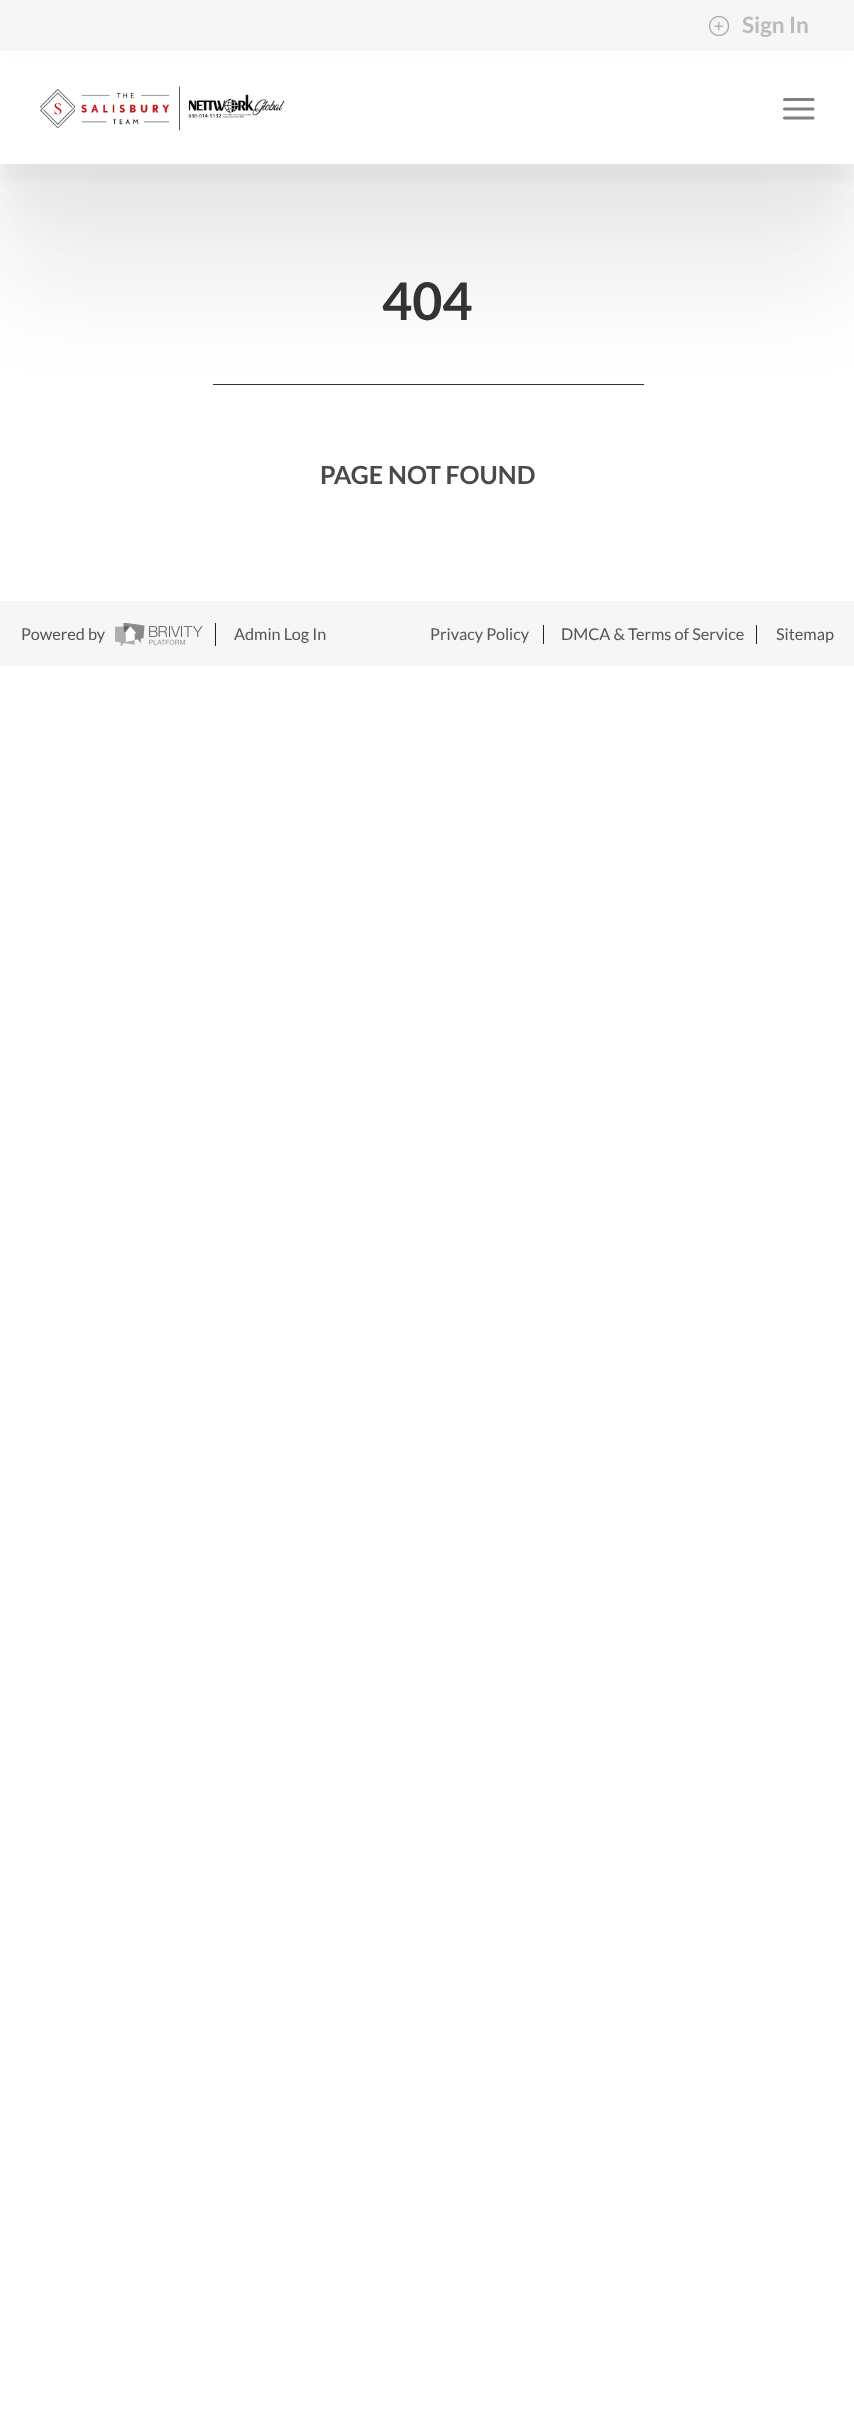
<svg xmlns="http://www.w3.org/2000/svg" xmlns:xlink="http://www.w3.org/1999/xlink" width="854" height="2422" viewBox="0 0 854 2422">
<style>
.cls-1{font:bold 22.5px Lato;fill:#bbbbbb}
.cls-2{font:bold 52px Lato;fill:#333333}
.cls-3{font:bold 25px Lato;fill:#4a4a4a}
.cls-4{font:16.25px Lato;fill:#555555}
</style>
<rect width="100%" height="100%" fill="#ffffff"/>
<rect fill="#333333" x="213" y="384" width="431" height="1"/>
<rect fill="#000000" fill-opacity="0.07" filter="blur(50px)" x="0" y="176" width="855" height="113"/>
<rect fill="#000000" fill-opacity="0.05" filter="blur(21px)" x="0" y="104" width="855" height="112"/>
<rect fill="#000000" fill-opacity="0.04" filter="blur(6px)" x="0" y="68" width="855" height="112"/>
<rect fill="#f6f6f6" x="0" y="0" width="854" height="51"/>
<image xlink:href="image0.png" x="708" y="15" width="22" height="22"/>
<rect fill="#ffffff" x="0" y="63" width="854" height="101"/>
<image xlink:href="image1.png" x="40" y="86" width="245" height="45"/>
<path fill="none" stroke="#808080" stroke-width="3.1" stroke-linecap="round" stroke-linejoin="round" d="M784.5 109H813M784.5 99.5H813M784.5 118H813"/>
<rect fill="#f6f6f6" x="0" y="601" width="854" height="65"/>
<rect fill="#222222" x="215" y="623" width="1" height="23"/>
<image xlink:href="image2.png" x="115" y="623" width="88" height="23"/>
<rect fill="#222222" x="543" y="625" width="1" height="19"/>
<rect fill="#222222" x="756" y="625" width="1" height="19"/>
<text class="cls-1" x="742" y="33">Sign In</text>
<text class="cls-2" x="382" y="320">404</text>
<text class="cls-3" x="320" y="484">PAGE NOT FOUND</text>
<text class="cls-4" x="21" y="640">Powered by</text>
<text class="cls-4" x="234" y="640">Admin Log In</text>
<text class="cls-4" x="430" y="640">Privacy Policy</text>
<text class="cls-4" x="561" y="640">DMCA &amp; Terms of Service</text>
<text class="cls-4" x="776" y="640">Sitemap</text>
</svg>
